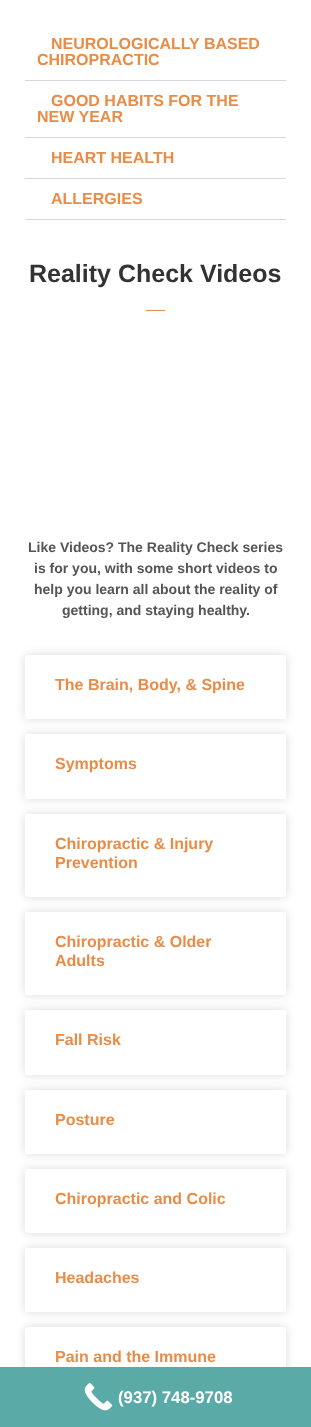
<svg xmlns="http://www.w3.org/2000/svg" xmlns:xlink="http://www.w3.org/1999/xlink" width="311" height="1427" viewBox="0 0 311 1427">
<style>
.cls-1{font:bold 16px Liberation Sans;fill:#e88c47}
.cls-2{font:bold 25px Liberation Sans;fill:#333333}
.cls-3{font:bold 14px Liberation Sans;fill:#555555}
.cls-4{font:bold 16.75px Liberation Sans;fill:#ffffff}
</style>
<rect width="100%" height="100%" fill="#ffffff"/>
<rect fill="#d5d8dc" x="25" y="80" width="261" height="1"/>
<rect fill="#d5d8dc" x="25" y="137" width="261" height="1"/>
<rect fill="#d5d8dc" x="25" y="178" width="261" height="1"/>
<rect fill="#d5d8dc" x="25" y="219" width="261" height="1"/>
<rect fill="#e88c47" x="146" y="310" width="19" height="1"/>
<rect fill="#000000" fill-opacity="0.15" filter="blur(5px)" x="25" y="655" width="261" height="64" rx="3"/>
<rect fill="#ffffff" x="25" y="655" width="261" height="64" rx="3"/>
<rect fill="#000000" fill-opacity="0.15" filter="blur(5px)" x="25" y="734" width="261" height="65" rx="3"/>
<rect fill="#ffffff" x="25" y="734" width="261" height="65" rx="3"/>
<rect fill="#000000" fill-opacity="0.15" filter="blur(5px)" x="25" y="814" width="261" height="83" rx="3"/>
<rect fill="#ffffff" x="25" y="814" width="261" height="83" rx="3"/>
<rect fill="#000000" fill-opacity="0.15" filter="blur(5px)" x="25" y="912" width="261" height="83" rx="3"/>
<rect fill="#ffffff" x="25" y="912" width="261" height="83" rx="3"/>
<rect fill="#000000" fill-opacity="0.15" filter="blur(5px)" x="25" y="1010" width="261" height="65" rx="3"/>
<rect fill="#ffffff" x="25" y="1010" width="261" height="65" rx="3"/>
<rect fill="#000000" fill-opacity="0.15" filter="blur(5px)" x="25" y="1090" width="261" height="64" rx="3"/>
<rect fill="#ffffff" x="25" y="1090" width="261" height="64" rx="3"/>
<rect fill="#000000" fill-opacity="0.15" filter="blur(5px)" x="25" y="1169" width="261" height="64" rx="3"/>
<rect fill="#ffffff" x="25" y="1169" width="261" height="64" rx="3"/>
<rect fill="#000000" fill-opacity="0.15" filter="blur(5px)" x="25" y="1248" width="261" height="64" rx="3"/>
<rect fill="#ffffff" x="25" y="1248" width="261" height="64" rx="3"/>
<rect fill="#000000" fill-opacity="0.15" filter="blur(5px)" x="25" y="1327" width="261" height="84" rx="3"/>
<rect fill="#ffffff" x="25" y="1327" width="261" height="84" rx="3"/>
<rect fill="#5aaba7" x="0" y="1367" width="311" height="60"/>
<image xlink:href="image0.png" x="84" y="1383" width="29" height="28"/>
<text class="cls-1" x="51" y="49">NEUROLOGICALLY BASED</text>
<text class="cls-1" x="37" y="65">CHIROPRACTIC</text>
<text class="cls-1" x="51" y="106">GOOD HABITS FOR THE</text>
<text class="cls-1" x="37" y="122">NEW YEAR</text>
<text class="cls-1" x="51" y="163">HEART HEALTH</text>
<text class="cls-1" x="51" y="204">ALLERGIES</text>
<text class="cls-2" x="29" y="282">Reality Check Videos</text>
<text class="cls-3" x="28" y="552">Like Videos? The Reality Check series</text>
<text class="cls-3"><tspan x="34" y="573">is for you, with some short videos to</tspan><tspan x="34" y="594">help you learn all about the reality of</tspan></text>
<text class="cls-3" x="62" y="615">getting, and staying healthy.</text>
<text class="cls-1" x="55" y="690">The Brain, Body, &amp; Spine</text>
<text class="cls-1" x="55" y="769">Symptoms</text>
<text class="cls-1"><tspan x="55" y="849">Chiropractic &amp; Injury</tspan><tspan x="55" y="868">Prevention</tspan></text>
<text class="cls-1"><tspan x="55" y="947">Chiropractic &amp; Older</tspan><tspan x="55" y="966">Adults</tspan></text>
<text class="cls-1" x="55" y="1045">Fall Risk</text>
<text class="cls-1" x="55" y="1125">Posture</text>
<text class="cls-1" x="55" y="1204">Chiropractic and Colic</text>
<text class="cls-1" x="55" y="1283">Headaches</text>
<text class="cls-1" x="55" y="1362">Pain and the Immune</text>
<text class="cls-4" x="118" y="1403">(937) 748-9708</text>
</svg>
